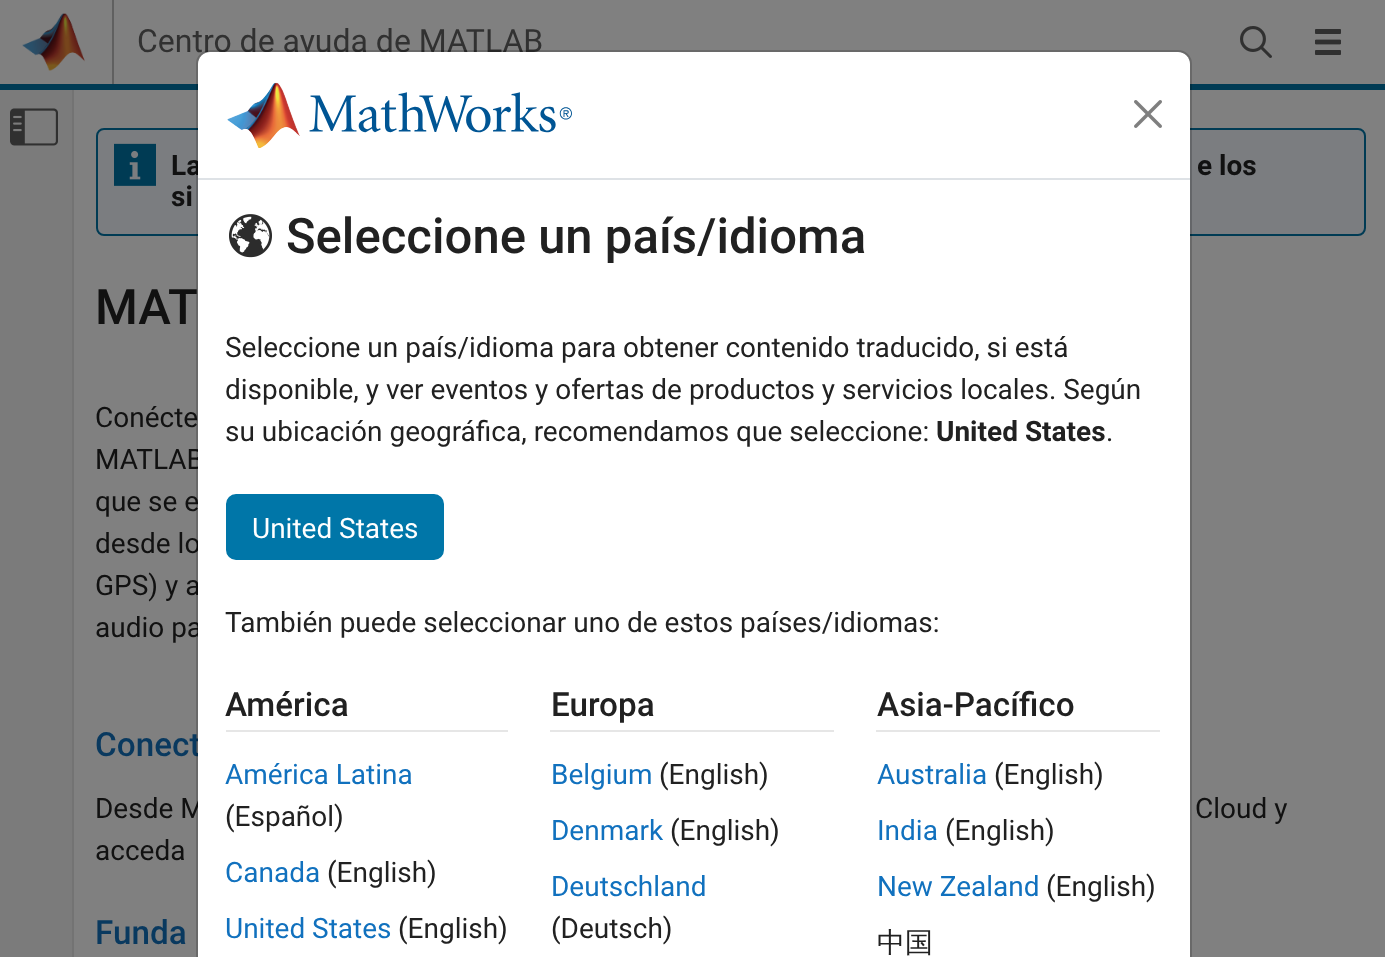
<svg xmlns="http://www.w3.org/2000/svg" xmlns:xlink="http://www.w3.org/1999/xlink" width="1385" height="957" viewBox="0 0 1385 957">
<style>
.cls-1{font:32px Roboto;fill:#313131}
.cls-2{font:bold 28px Roboto;fill:#111111}
.cls-3{font:500 49px Roboto;fill:#111111}
.cls-4{font:28px Roboto;fill:#111111}
.cls-5{font:500 33.25px Roboto;fill:#09395f}
.cls-6{font:500 49px Roboto;fill:#212121}
.cls-7{font:28px Roboto;fill:#212121}
.cls-8{font:bold 28px Roboto;fill:#212121}
.cls-9{font:28px Roboto;fill:#ffffff}
.cls-10{font:500 33.25px Roboto;fill:#212121}
.cls-11{font:28px Roboto;fill:#1171be}
.cls-12{font:500 28px WenQuanYi Zen Hei;fill:#212121}
</style>
<rect width="100%" height="100%" fill="#7b7b7b"/>
<rect fill="#808080" x="0" y="0" width="1385" height="84"/>
<rect fill="#003b54" x="0" y="84" width="1385" height="6"/>
<rect fill="#606060" x="112" y="0" width="2" height="84"/>
<image xlink:href="image0.png" x="22" y="13" width="63" height="58"/>
<image xlink:href="image1.png" x="1240" y="26" width="32" height="32"/>
<image xlink:href="image2.png" x="1315" y="29" width="26" height="26"/>
<rect fill="#737373" x="72" y="90" width="2" height="867"/>
<image xlink:href="image3.png" x="10" y="108" width="48" height="38"/>
<rect fill="#808080" x="74" y="90" width="1311" height="867"/>
<rect fill="#7b7d80" stroke="#003b54" stroke-width="2" x="97" y="129" width="1268" height="106" rx="7"/>
<image xlink:href="image4.png" x="114" y="143" width="42" height="43"/>
<text class="cls-1" x="137" y="52">Centro de ayuda de MATLAB</text>
<text class="cls-2" x="171" y="175">La</text>
<text class="cls-2" x="1197" y="175">e los</text>
<text class="cls-2" x="171" y="206">si</text>
<text class="cls-3" x="95" y="324">MAT</text>
<text class="cls-4"><tspan x="95" y="427">Conécte</tspan><tspan x="95" y="469">MATLAB</tspan><tspan x="95" y="511">que se e</tspan><tspan x="95" y="553">desde lo</tspan><tspan x="95" y="595">GPS) y a</tspan><tspan x="95" y="637">audio pa</tspan></text>
<text class="cls-5" x="95" y="756">Conect</text>
<text class="cls-4" x="95" y="818">Desde M</text>
<text class="cls-4" x="1195" y="818">Cloud y</text>
<text class="cls-4" x="95" y="860">acceda</text>
<text class="cls-5" x="95" y="944">Funda</text>
<path fill="#ffffff" d="M210 52H1178C1184.5 52 1190 57.5 1190 64V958H198V64C198 57.5 203.5 52 210 52Z"/>
<rect fill="none" stroke="#000000" stroke-opacity="0.18" stroke-width="2" x="197" y="51" width="994" height="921" rx="13"/>
<rect fill="#dee2e6" x="198" y="178" width="992" height="2"/>
<image xlink:href="image5.png" x="227" y="82" width="345" height="66"/>
<image xlink:href="image6.png" x="1134" y="100" width="28" height="28"/>
<image xlink:href="image7.png" x="229" y="214" width="43" height="44"/>
<text class="cls-6" x="286" y="253">Seleccione un país/idioma</text>
<text class="cls-7"><tspan x="225" y="357">Seleccione un país/idioma para obtener contenido traducido, si está</tspan><tspan x="225" y="399">disponible, y ver eventos y ofertas de productos y servicios locales. Según</tspan><tspan x="225" y="441">su ubicación geográfica, recomendamos que seleccione:</tspan></text>
<text class="cls-8" x="936" y="441">United States</text>
<text class="cls-7" x="1106" y="441">.</text>
<rect fill="#0076a8" stroke="#0076a8" stroke-width="2" x="227" y="495" width="216" height="64" rx="9"/>
<text class="cls-9" x="252" y="538">United States</text>
<text class="cls-7" x="225" y="632">También puede seleccionar uno de estos países/idiomas:</text>
<rect fill="#e6e6e6" x="226" y="730" width="282" height="2"/>
<text class="cls-10" x="225" y="716">América</text>
<text class="cls-11" x="225" y="784">América Latina</text>
<text class="cls-7" x="225" y="826">(Español)</text>
<text class="cls-11" x="225" y="882">Canada</text>
<text class="cls-7" x="327" y="882">(English)</text>
<text class="cls-11" x="225" y="938">United States</text>
<text class="cls-7" x="398" y="938">(English)</text>
<rect fill="#e6e6e6" x="550" y="730" width="284" height="2"/>
<text class="cls-10" x="551" y="716">Europa</text>
<text class="cls-11" x="551" y="784">Belgium</text>
<text class="cls-7" x="659" y="784">(English)</text>
<text class="cls-11" x="551" y="840">Denmark</text>
<text class="cls-7" x="670" y="840">(English)</text>
<text class="cls-11" x="551" y="896">Deutschland</text>
<text class="cls-7" x="551" y="938">(Deutsch)</text>
<rect fill="#e6e6e6" x="876" y="730" width="284" height="2"/>
<text class="cls-10" x="877" y="716">Asia-Pacífico</text>
<text class="cls-11" x="877" y="784">Australia</text>
<text class="cls-7" x="994" y="784">(English)</text>
<text class="cls-11" x="877" y="840">India</text>
<text class="cls-7" x="945" y="840">(English)</text>
<text class="cls-11" x="877" y="896">New Zealand</text>
<text class="cls-7" x="1046" y="896">(English)</text>
<text class="cls-12" x="877" y="952">中国</text>
</svg>
